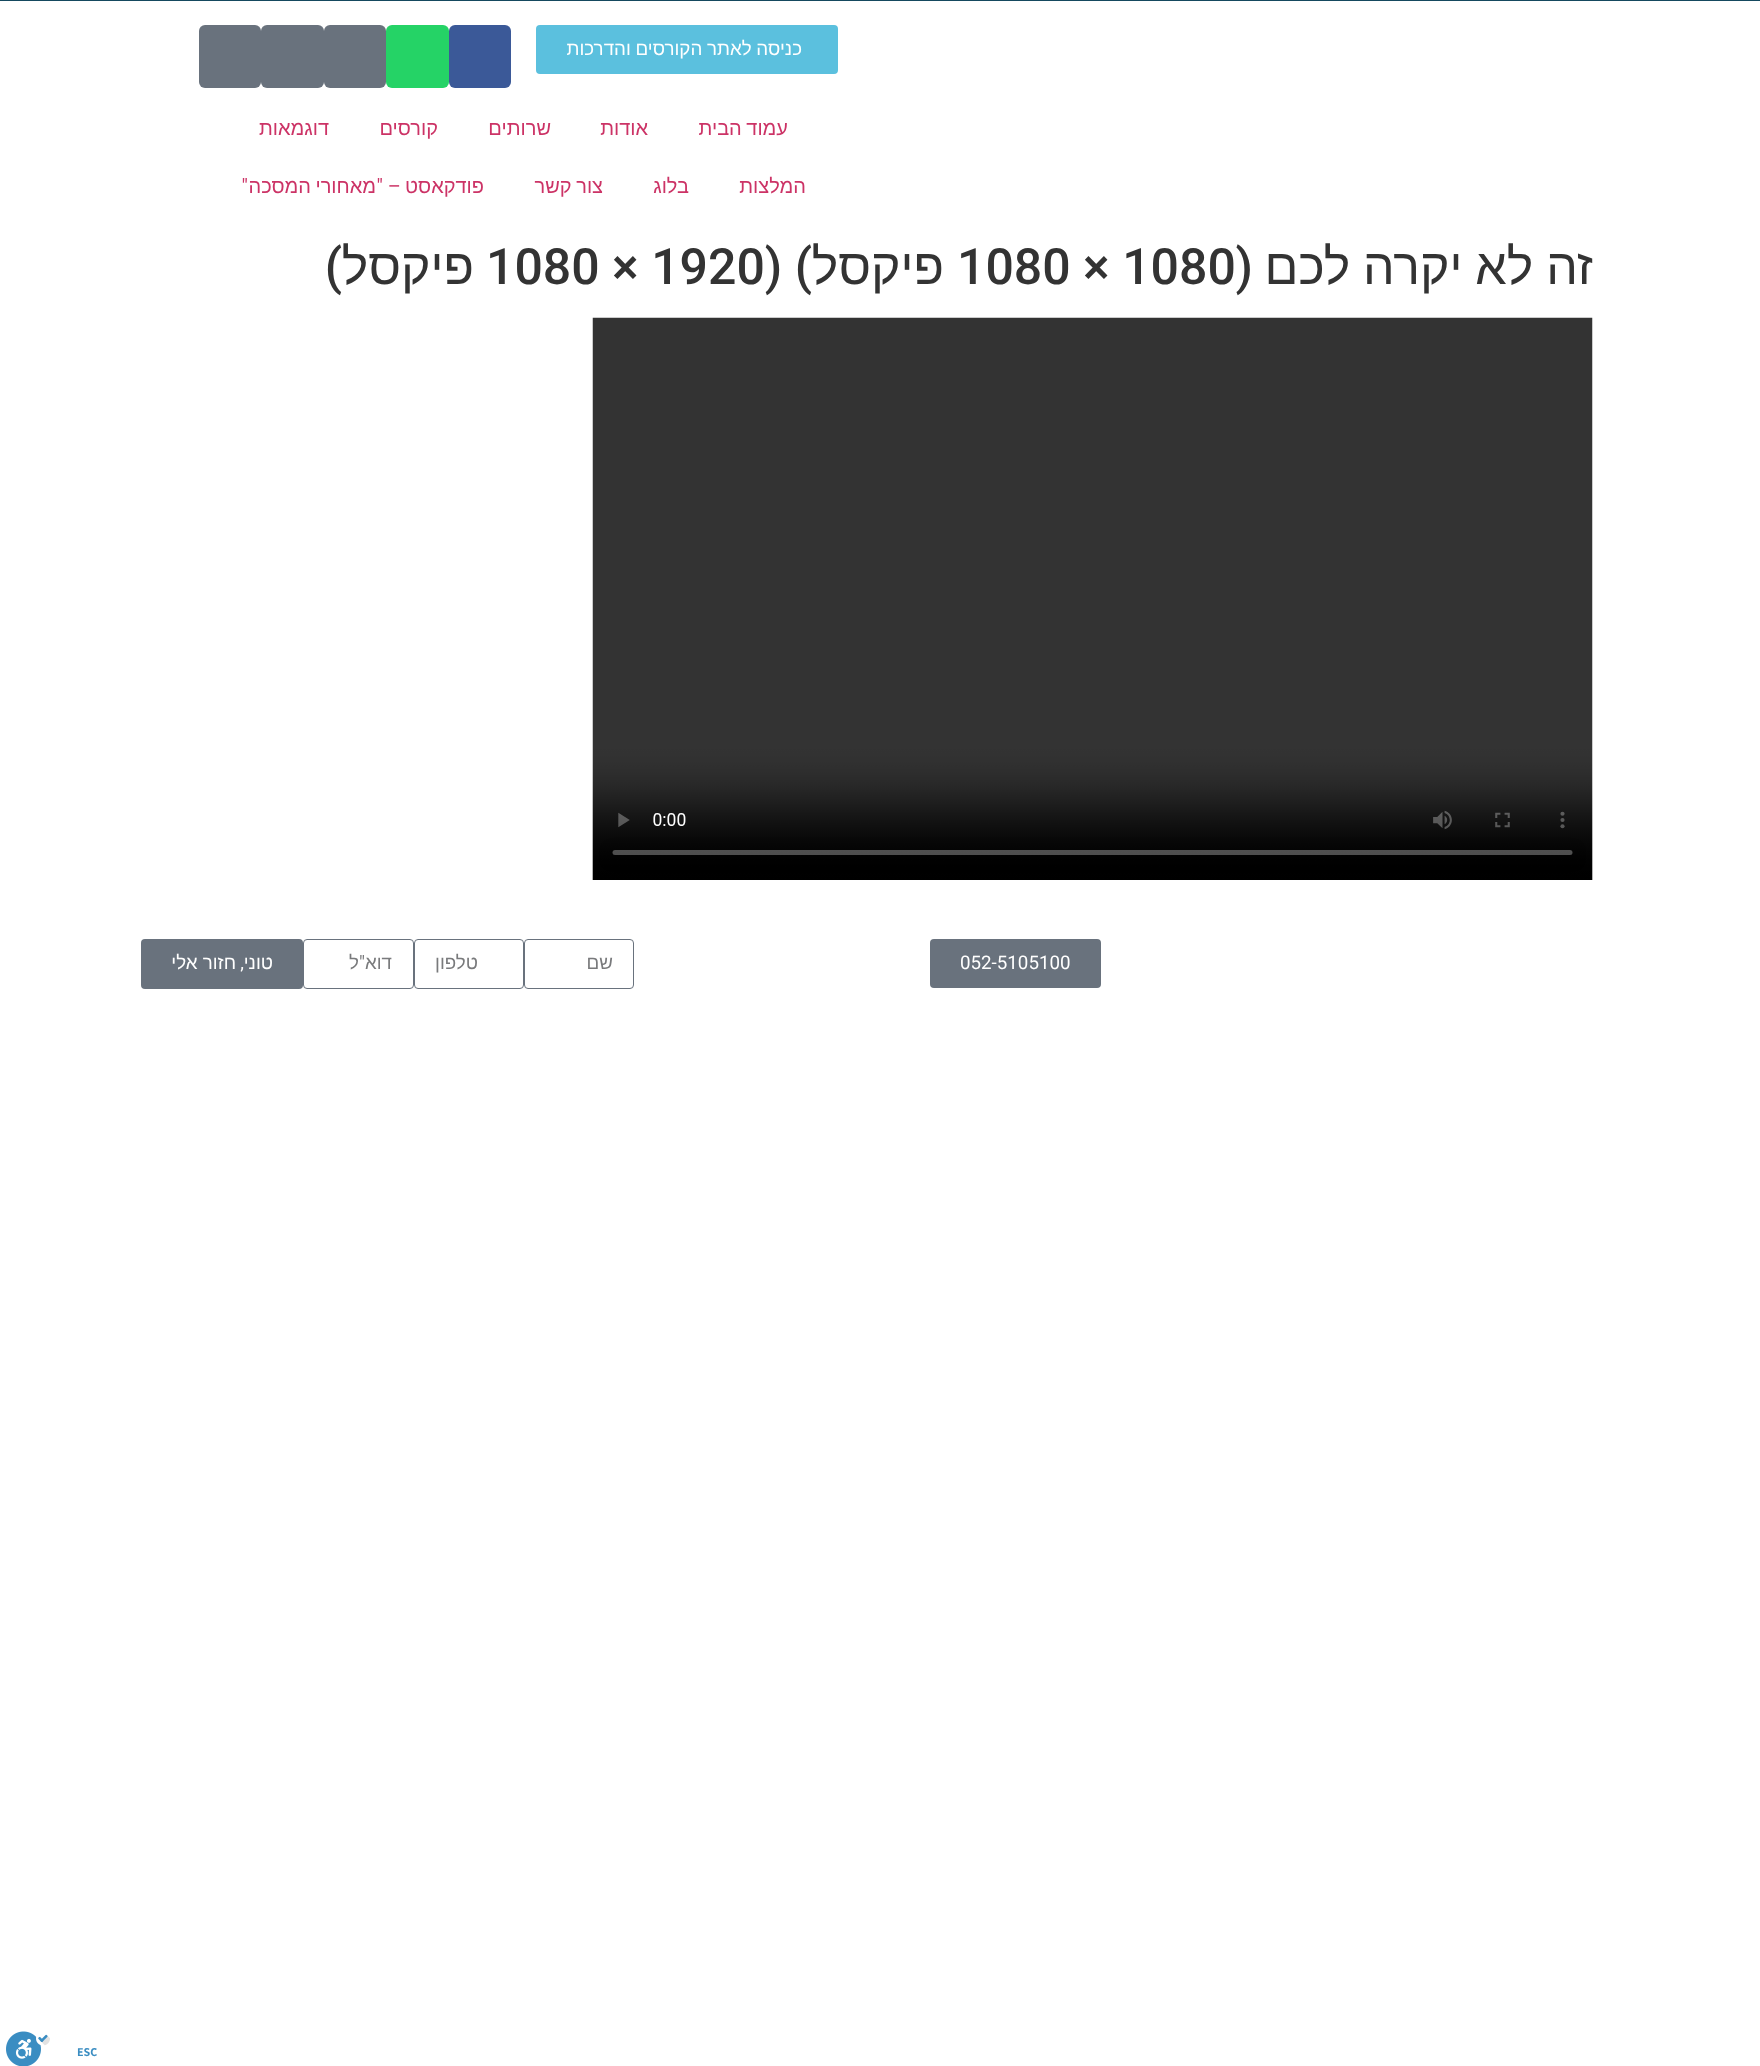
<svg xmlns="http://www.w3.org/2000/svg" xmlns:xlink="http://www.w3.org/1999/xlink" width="1760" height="2066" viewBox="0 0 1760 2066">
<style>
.cls-1{font:18.75px Liberation Sans;direction:rtl;fill:#ffffff}
.cls-2{font:20px Liberation Sans;direction:rtl;fill:#cc3366}
.cls-3{font:20px Roboto;direction:rtl;fill:#cc3366}
.cls-4{font:50px Liberation Sans;direction:rtl;fill:#333333}
.cls-5{font:500 50px Roboto;direction:rtl;fill:#333333}
.cls-6{font:500 50px Roboto;fill:#333333}
.cls-7{font:18.75px Roboto;fill:#ffffff}
.cls-8{font:18.75px Liberation Sans;direction:rtl;fill:#797a7c}
.cls-9{font:18.75px Roboto;direction:rtl;fill:#797a7c}
.cls-10{font:18.75px Roboto;direction:rtl;fill:#ffffff}
.cls-11{font:bold 12px Assistant;fill:#3a8dc2}
</style>
<rect width="100%" height="100%" fill="#ffffff"/>
<rect fill="#5bc0de" x="536" y="25" width="302" height="49" rx="4"/>
<rect fill="#3b5998" x="449" y="25" width="62" height="63" rx="6"/>
<rect fill="#25d366" x="386" y="25" width="63" height="63" rx="6"/>
<rect fill="#69727d" x="324" y="25" width="62" height="63" rx="6"/>
<rect fill="#69727d" x="261" y="25" width="63" height="63" rx="6"/>
<rect fill="#69727d" x="199" y="25" width="62" height="63" rx="6"/>
<image xlink:href="image0.png" x="592" y="317" width="1001" height="563"/>
<rect fill="#69727d" x="930" y="939" width="171" height="49" rx="4"/>
<rect fill="none" stroke="#69727d" x="524.5" y="939.5" width="109" height="49" rx="3.5"/>
<rect fill="none" stroke="#69727d" x="414.5" y="939.5" width="109" height="49" rx="3.5"/>
<rect fill="none" stroke="#69727d" x="303.5" y="939.5" width="110" height="49" rx="3.5"/>
<rect fill="#69727d" x="141" y="939" width="162" height="50" rx="4"/>
<rect fill="#15495f" x="0" y="0" width="1760" height="1"/>
<image xlink:href="image1.png" x="6" y="2031" width="44" height="35"/>
<text class="cls-1" x="802" y="55" word-spacing="-0.5">כניסה לאתר הקורסים והדרכות</text>
<text class="cls-2" x="788" y="135" word-spacing="-1">עמוד הבית</text>
<text class="cls-2" x="648" y="135">אודות</text>
<text class="cls-2" x="551" y="135">שרותים</text>
<text class="cls-2" x="438" y="135">קורסים</text>
<text class="cls-2" x="329" y="135">דוגמאות</text>
<text class="cls-2" x="806" y="193">המלצות</text>
<text class="cls-2" x="689" y="193">בלוג</text>
<text class="cls-2" x="603" y="193" word-spacing="-1">צור קשר</text>
<text class="cls-2" x="484" y="193">פודקאסט</text>
<text class="cls-3" x="401" y="193">– "</text>
<text class="cls-2" x="376" y="193">מאחורי</text>
<text class="cls-2" x="311" y="193">המסכה</text>
<text class="cls-3" x="248" y="193">"</text>
<text class="cls-4" x="1593" y="284" word-spacing="-1">זה לא יקרה לכם</text>
<text class="cls-5" x="1253" y="284">(</text>
<text class="cls-6" x="957" y="284">1080 × 1080</text>
<text class="cls-4" x="944" y="284">פיקסל</text>
<text class="cls-5" x="812" y="284">) (</text>
<text class="cls-6" x="486" y="284">1080 × 1920</text>
<text class="cls-4" x="474" y="284">פיקסל</text>
<text class="cls-5" x="342" y="284">)</text>
<text class="cls-7" x="960" y="969">052-5105100</text>
<text class="cls-8" x="613" y="969">שם</text>
<text class="cls-8" x="478" y="969">טלפון</text>
<text class="cls-8" x="392" y="969">דוא</text>
<text class="cls-9" x="365" y="969">"</text>
<text class="cls-8" x="359" y="969">ל</text>
<text class="cls-1" x="273" y="969">טוני</text>
<text class="cls-10" x="244" y="969">,</text>
<text class="cls-1" x="236" y="969">חזור אלי</text>
<text class="cls-11" x="77" y="2056">ESC</text>
</svg>
